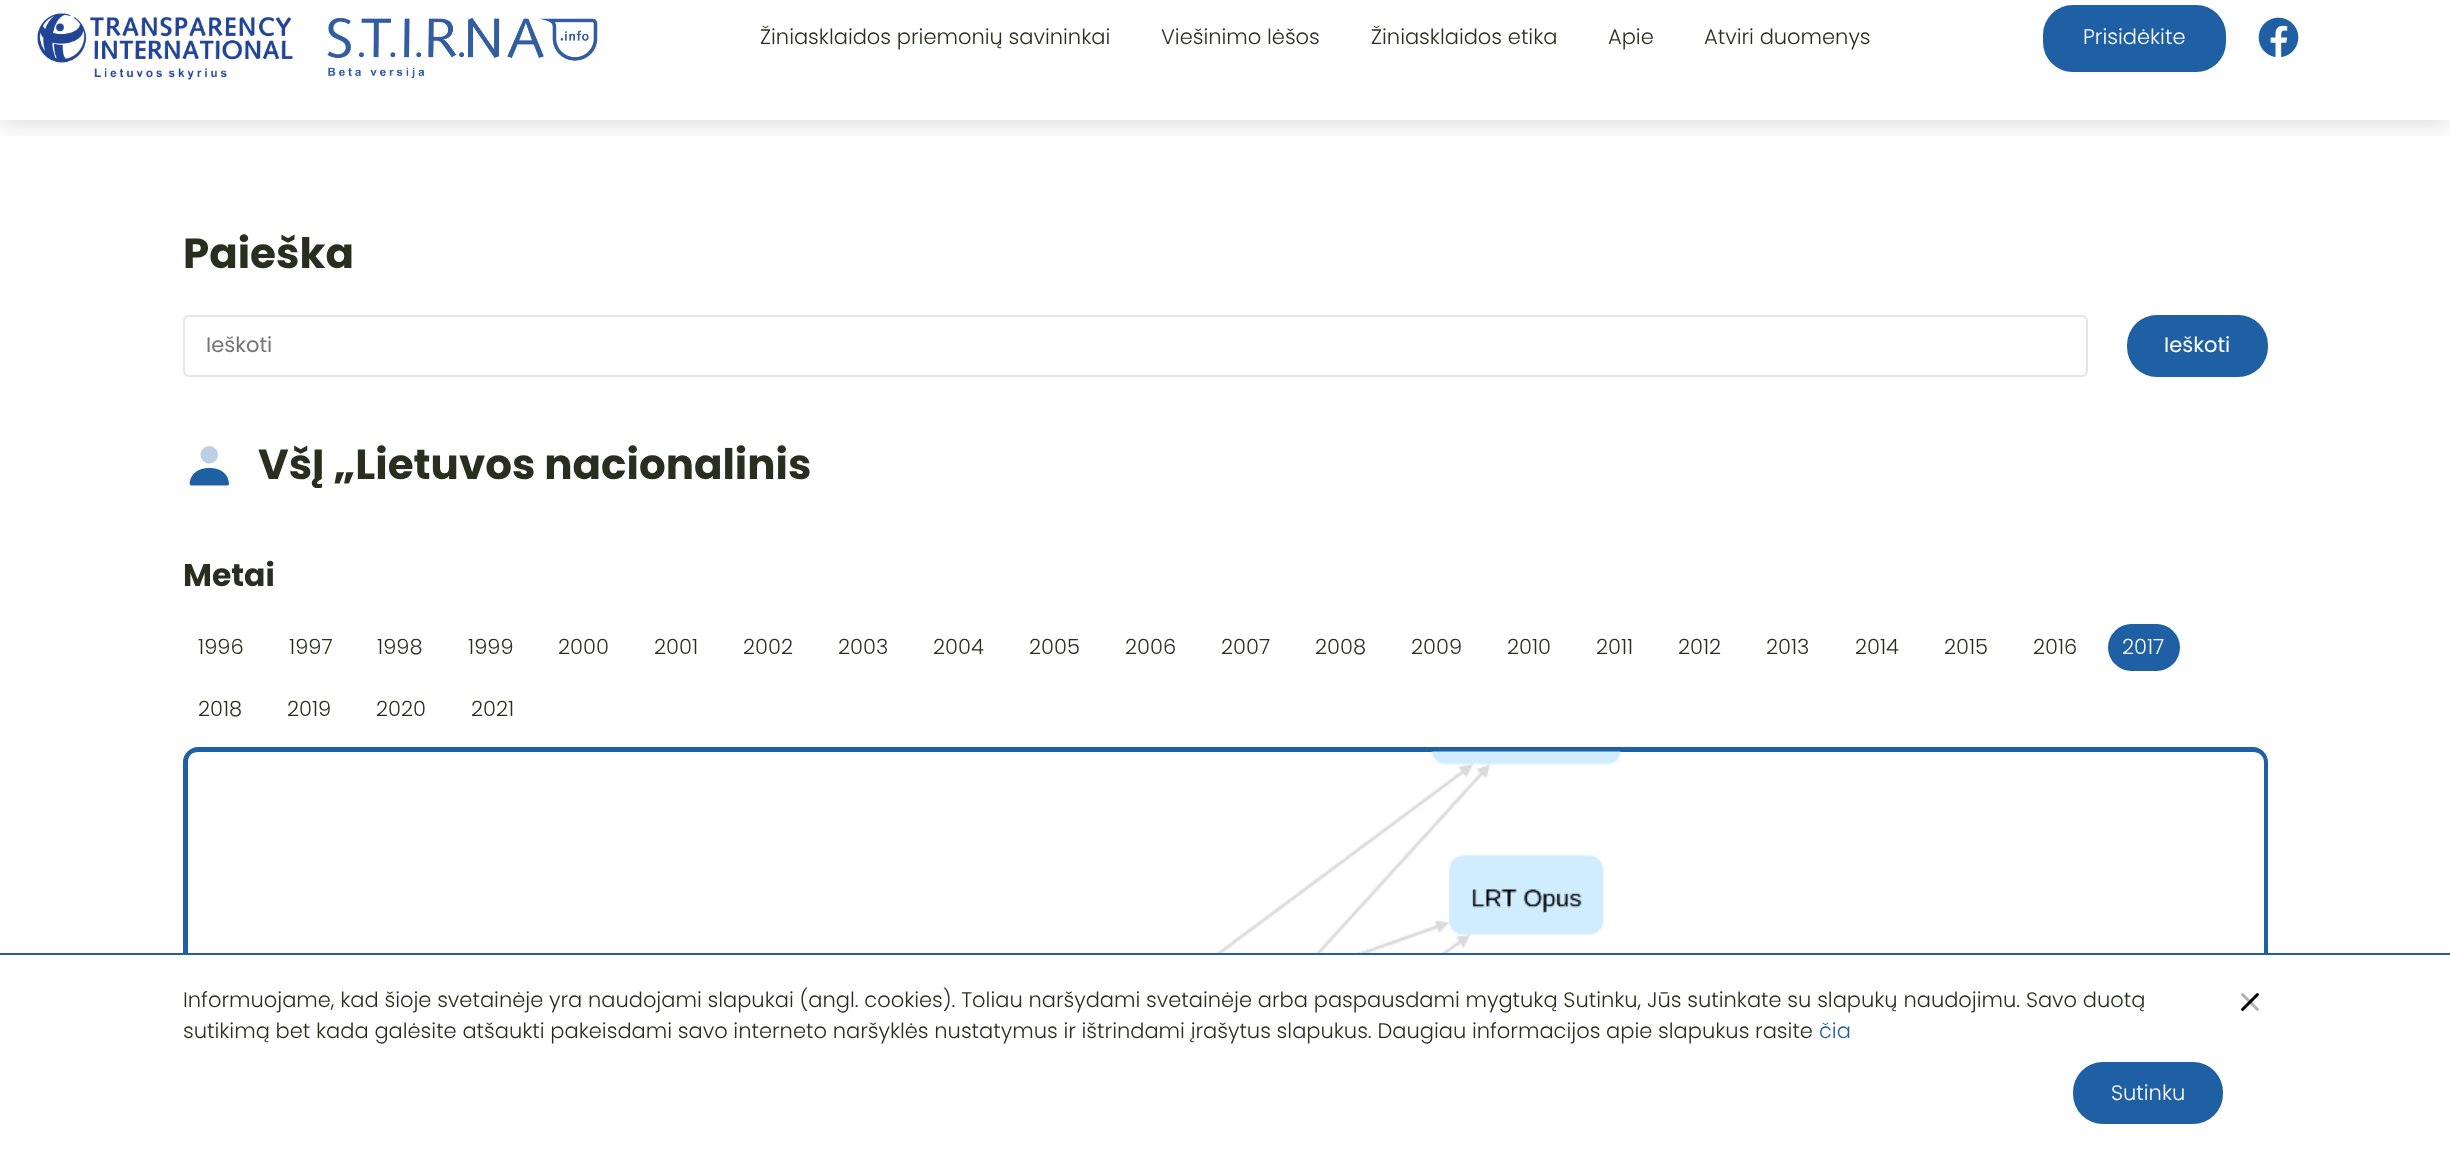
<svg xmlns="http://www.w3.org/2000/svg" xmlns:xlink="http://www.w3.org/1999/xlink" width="2450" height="1153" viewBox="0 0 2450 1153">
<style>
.cls-1{font:300 21px Poppins;fill:#292e1e}
.cls-2{font:300 21px Poppins;fill:#ffffff}
.cls-3{font:bold 42px Poppins;fill:#292e1e}
.cls-4{font:21px Poppins;fill:#757575}
.cls-5{font:21px Poppins;fill:#ffffff}
.cls-6{font:bold 31.5px Poppins;fill:#292e1e}
.cls-7{font:300 21px Poppins;fill:#1f5fa3}
</style>
<defs>
<clipPath id="clip1"><rect x="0" y="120" width="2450" height="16"/></clipPath>
</defs>
<rect width="100%" height="100%" fill="#ffffff"/>
<g clip-path="url(#clip1)">
<rect fill="#000000" fill-opacity="0.15" filter="blur(12px)" x="0" y="-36" width="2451" height="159"/>
</g>
<image xlink:href="image0.png" x="37" y="13" width="256" height="67"/>
<image xlink:href="image1.png" x="327" y="18" width="271" height="61"/>
<rect fill="#1f5fa3" stroke="#1f5fa3" stroke-width="3" x="2044.5" y="6.5" width="180" height="64" rx="28.5"/>
<image xlink:href="image2.png" x="2258" y="17" width="41" height="41"/>
<rect fill="none" stroke="#e2e5ec" stroke-width="2" x="184" y="316" width="1903" height="60" rx="5"/>
<rect fill="#1f5fa3" x="2127" y="315" width="141" height="62" rx="30"/>
<image xlink:href="image3.png" x="189" y="446" width="40" height="40"/>
<rect fill="#1f5fa3" x="2108" y="624" width="72" height="47" rx="23.5"/>
<path fill="#1f5fa3" fill-rule="evenodd" d="M198 747H2253C2261 747 2268 754 2268 762V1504H183V762C183 754 190 747 198 747ZM198 752H2253C2259 752 2264 756 2264 762V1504H188V762C188 756 192 752 198 752Z"/>
<image xlink:href="image4.png" x="1215" y="751" width="407" height="202"/>
<rect fill="#ffffff" x="183" y="955" width="2085" height="198"/>
<rect fill="#1f5fa3" x="0" y="953" width="2450" height="2"/>
<image xlink:href="image5.png" x="2241" y="993" width="18" height="18"/>
<rect fill="#1f5fa3" x="2073" y="1062" width="150" height="62" rx="30"/>
<text class="cls-1" x="760" y="44">Žiniasklaidos priemonių savininkai</text>
<text class="cls-1" x="1161" y="44">Viešinimo lėšos</text>
<text class="cls-1" x="1371" y="44">Žiniasklaidos etika</text>
<text class="cls-1" x="1608" y="44">Apie</text>
<text class="cls-1" x="1704" y="44">Atviri duomenys</text>
<text class="cls-2" x="2083" y="44">Prisidėkite</text>
<text class="cls-3" x="183" y="268">Paieška</text>
<text class="cls-4" x="206" y="352">Ieškoti</text>
<text class="cls-5" x="2164" y="352">Ieškoti</text>
<text class="cls-3" x="258" y="479">VšĮ „Lietuvos nacionalinis</text>
<text class="cls-6" x="183" y="586">Metai</text>
<text class="cls-1" x="198" y="654">1996</text>
<text class="cls-1" x="289" y="654">1997</text>
<text class="cls-1" x="377" y="654">1998</text>
<text class="cls-1" x="468" y="654">1999</text>
<text class="cls-1" x="558" y="654">2000</text>
<text class="cls-1" x="654" y="654">2001</text>
<text class="cls-1" x="743" y="654">2002</text>
<text class="cls-1" x="838" y="654">2003</text>
<text class="cls-1" x="933" y="654">2004</text>
<text class="cls-1" x="1029" y="654">2005</text>
<text class="cls-1" x="1125" y="654">2006</text>
<text class="cls-1" x="1221" y="654">2007</text>
<text class="cls-1" x="1315" y="654">2008</text>
<text class="cls-1" x="1411" y="654">2009</text>
<text class="cls-1" x="1507" y="654">2010</text>
<text class="cls-1" x="1596" y="654">2011</text>
<text class="cls-1" x="1678" y="654">2012</text>
<text class="cls-1" x="1766" y="654">2013</text>
<text class="cls-1" x="1855" y="654">2014</text>
<text class="cls-1" x="1944" y="654">2015</text>
<text class="cls-1" x="2033" y="654">2016</text>
<text class="cls-2" x="2122" y="654">2017</text>
<text class="cls-1" x="198" y="716">2018</text>
<text class="cls-1" x="287" y="716">2019</text>
<text class="cls-1" x="376" y="716">2020</text>
<text class="cls-1" x="471" y="716">2021</text>
<text class="cls-1"><tspan x="183" y="1007">Informuojame, kad šioje svetainėje yra naudojami slapukai (angl. cookies). Toliau naršydami svetainėje arba paspausdami mygtuką Sutinku, Jūs sutinkate su slapukų naudojimu. Savo duotą</tspan><tspan x="183" y="1038">sutikimą bet kada galėsite atšaukti pakeisdami savo interneto naršyklės nustatymus ir ištrindami įrašytus slapukus. Daugiau informacijos apie slapukus rasite</tspan></text>
<text class="cls-7" x="1819" y="1038">čia</text>
<text class="cls-2" x="2111" y="1100">Sutinku</text>
</svg>
